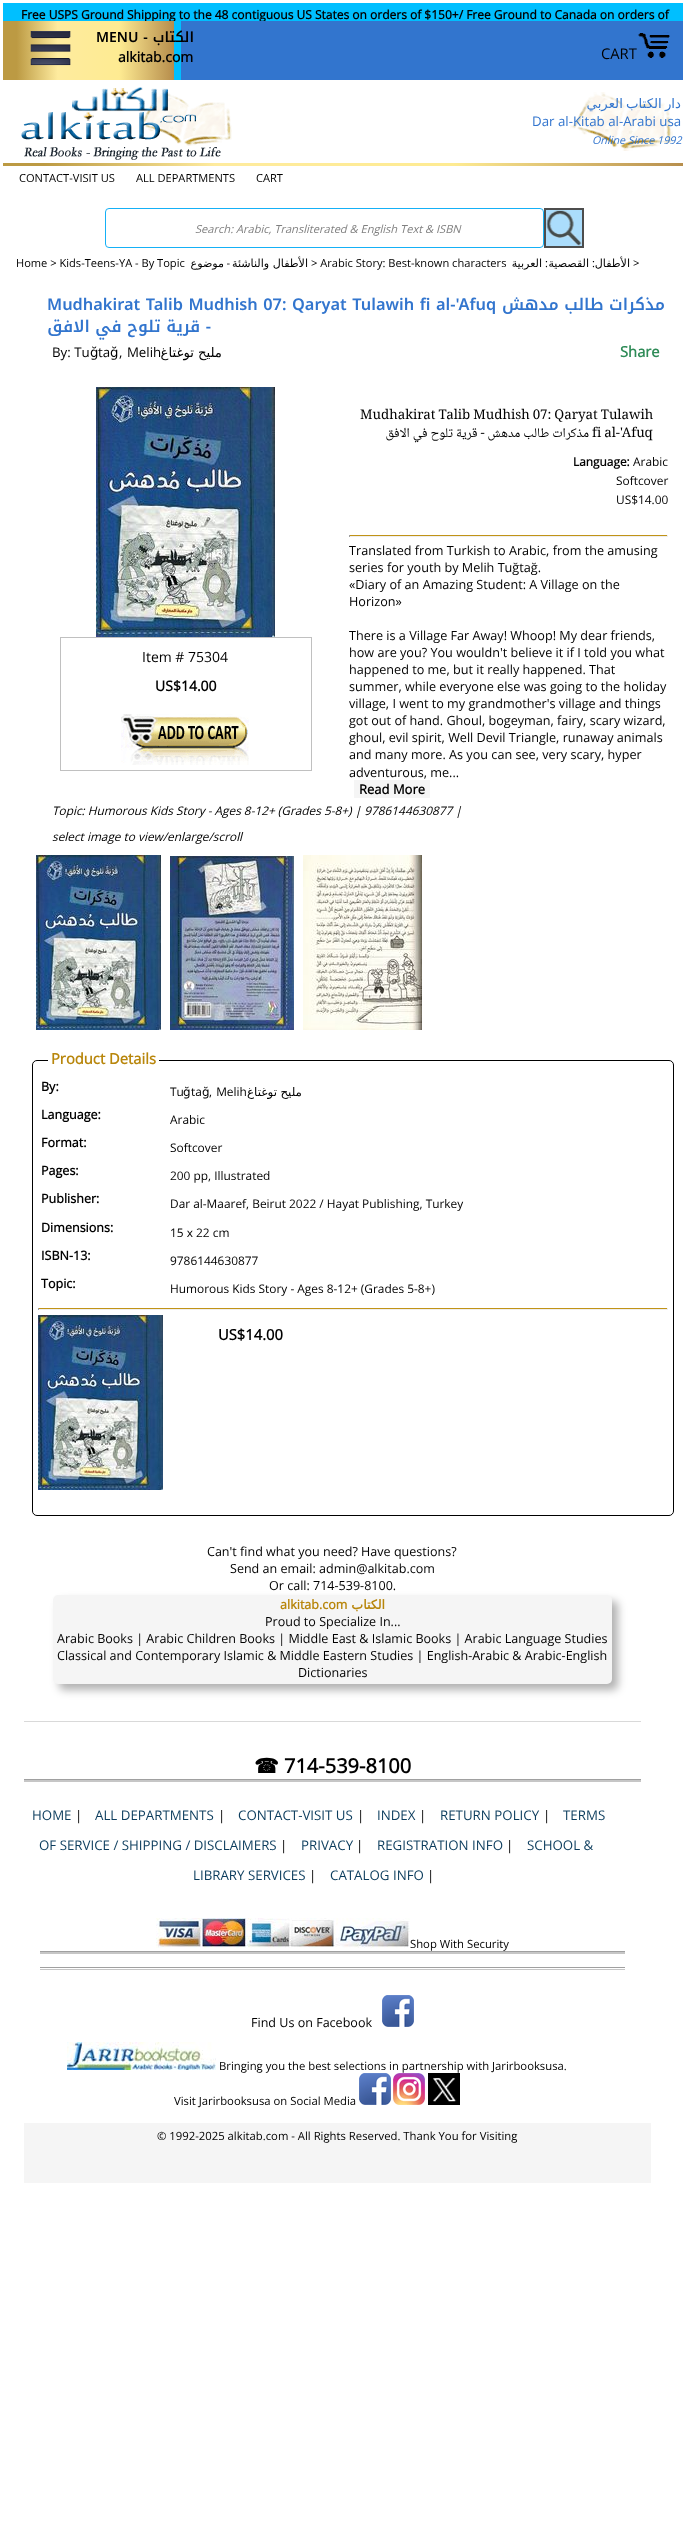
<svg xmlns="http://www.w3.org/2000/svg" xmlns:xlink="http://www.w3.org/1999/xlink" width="683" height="2530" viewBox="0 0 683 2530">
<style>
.cls-1{font:bold 12px Open Sans;fill:#000000}
.cls-2{font:600 14px Noto Kufi Arabic;fill:#000000}
.cls-3{font:600 14px Noto Kufi Arabic;direction:rtl;fill:#000000}
.cls-4{font:bold 14px Open Sans;fill:#000000}
.cls-5{font:14.75px Open Sans;fill:#000000}
.cls-6{font:13.3px DejaVu Sans;direction:rtl;fill:#3275ce}
.cls-7{font:13.3px Open Sans;fill:#3275ce}
.cls-8{font:italic 10.75px Open Sans;fill:#3275ce}
.cls-9{font:11.1px Open Sans;fill:#000000}
.cls-10{font:italic 11.1px Open Sans;fill:#808080}
.cls-11{font:11.1px DejaVu Sans;direction:rtl;fill:#000000}
.cls-12{font:11.1px Open Sans;direction:rtl;fill:#000000}
.cls-13{font:600 16.25px Noto Kufi Arabic;fill:#3275ce}
.cls-14{font:600 16.25px Noto Kufi Arabic;direction:rtl;fill:#3275ce}
.cls-15{font:13.3px Open Sans;fill:#000000}
.cls-16{font:13.3px DejaVu Sans;fill:#000000}
.cls-17{font:13.3px DejaVu Sans;direction:rtl;fill:#000000}
.cls-18{font:bold 14.75px Open Sans;fill:#2e8b57}
.cls-19{font:14px Open Sans;fill:#000000}
.cls-20{font:13.35px Noto Naskh Arabic;fill:#000000}
.cls-21{font:13.35px Noto Naskh Arabic;direction:rtl;fill:#000000}
.cls-22{font:bold 11.9px Open Sans;fill:#000000}
.cls-23{font:11.9px Open Sans;fill:#000000}
.cls-24{font:12.65px Open Sans;fill:#000000}
.cls-25{font:bold 13px Open Sans;fill:#000000}
.cls-26{font:italic 11.85px Open Sans;fill:#000000}
.cls-27{font:bold 14.75px Open Sans;fill:#b8860b}
.cls-28{font:bold 12.55px Open Sans;fill:#000000}
.cls-29{font:11.9px DejaVu Sans;fill:#000000}
.cls-30{font:11.9px DejaVu Sans;direction:rtl;fill:#000000}
.cls-31{font:bold 14.75px Open Sans;fill:#000000}
.cls-32{font:12.55px Open Sans;fill:#000000}
.cls-33{font:bold 12.55px Open Sans;fill:#b8860b}
.cls-34{font:bold 12.55px DejaVu Sans;direction:rtl;fill:#b8860b}
.cls-35{font:bold 20px DejaVu Sans;fill:#000000}
.cls-36{font:bold 20px Open Sans;fill:#000000}
.cls-37{font:13.3px Open Sans;fill:#0b3c5d}
.cls-38{font:11.3px Open Sans;fill:#000000}
</style>
<defs>
<linearGradient id="g1" gradientUnits="userSpaceOnUse" x1="3" y1="43" x2="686" y2="42"><stop offset="0.02" stop-color="#bc9a43"/><stop offset="0.08" stop-color="#feeb9e"/><stop offset="0.17" stop-color="#feeb92"/><stop offset="0.25" stop-color="#b68d4c"/><stop offset="0.25" stop-color="#00bfff"/><stop offset="0.26" stop-color="#00bfff"/><stop offset="0.26" stop-color="#3275ce"/><stop offset="1" stop-color="#3275ce"/></linearGradient>
<linearGradient id="g2" gradientUnits="userSpaceOnUse" x1="3" y1="165" x2="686" y2="164"><stop offset="0.06" stop-color="#bc9a43"/><stop offset="0.31" stop-color="#feeb9e"/><stop offset="0.66" stop-color="#feeb92"/><stop offset="1" stop-color="#b68d4c"/></linearGradient>
<clipPath id="clip1"><rect x="8" y="6" width="673" height="15"/></clipPath>
</defs>
<rect width="100%" height="100%" fill="#ffffff"/>
<rect fill="url(#g1)" x="3" y="21" width="680" height="59"/>
<rect fill="#00bfff" x="3" y="3" width="680" height="18"/>
<image xlink:href="image0.png" x="30" y="31" width="41" height="35"/>
<image xlink:href="image1.png" x="638" y="32" width="32" height="26"/>
<image xlink:href="image2.png" x="21" y="87" width="211" height="73"/>
<image xlink:href="image3.png" x="570" y="92" width="103" height="59"/>
<rect fill="url(#g2)" x="3" y="163" width="680" height="3"/>
<rect fill="none" stroke="#15b0f6" x="105.5" y="208.5" width="438" height="39" rx="3.5"/>
<rect fill="#abddfc" x="546" y="210" width="36" height="36"/>
<image xlink:href="image4.png" x="546" y="210" width="36" height="36"/>
<rect fill="none" stroke="#4d4d4d" stroke-width="2" x="545" y="209" width="38" height="38"/>
<image xlink:href="image5.png" x="96" y="387" width="179" height="250"/>
<rect fill="none" stroke="#c0c0c0" x="60.5" y="637.5" width="251" height="133"/>
<image xlink:href="image6.png" x="121" y="714" width="128" height="51"/>
<rect fill="#c19317" x="349" y="535" width="319" height="1"/>
<rect fill="#eeeeee" x="667" y="535" width="1" height="2"/>
<rect fill="#eeeeee" x="349" y="536" width="319" height="1"/>
<rect fill="#9f9f9f" x="349" y="535" width="1" height="2"/>
<rect fill="#f5f5f5" x="354" y="780" width="76" height="18"/>
<image xlink:href="image7.png" x="36" y="855" width="125" height="175"/>
<image xlink:href="image8.png" x="170" y="856" width="124" height="174"/>
<image xlink:href="image9.png" x="303" y="855" width="119" height="175"/>
<rect fill="none" stroke="#000000" x="32.5" y="1060.5" width="641" height="455" rx="4.5"/>
<rect fill="#ffffff" x="48" y="1060" width="111" height="1"/>
<rect fill="#c19317" x="38" y="1308" width="630" height="1"/>
<rect fill="#eeeeee" x="667" y="1308" width="1" height="2"/>
<rect fill="#eeeeee" x="38" y="1309" width="630" height="1"/>
<rect fill="#9f9f9f" x="38" y="1308" width="1" height="2"/>
<image xlink:href="image10.png" x="38" y="1315" width="125" height="175"/>
<rect fill="#000000" fill-opacity="0.3" filter="blur(4.5px)" x="59" y="1601" width="559" height="89" rx="5"/>
<rect fill="#f5f5f5" x="53" y="1595" width="559" height="89" rx="5"/>
<rect fill="#c6c6c6" x="24" y="1780" width="617" height="2"/>
<rect fill="#d9d9d9" x="24" y="1721" width="617" height="1"/>
<rect fill="#a0a0a0" x="24" y="1779" width="617" height="1"/>
<rect fill="#c6c6c6" x="40" y="1952" width="585" height="2"/>
<rect fill="#a0a0a0" x="40" y="1951" width="585" height="1"/>
<image xlink:href="image11.png" x="156" y="1918" width="254" height="30"/>
<rect fill="#c6c6c6" x="40" y="1969" width="585" height="1"/>
<rect fill="#a0a0a0" x="40" y="1967" width="585" height="1"/>
<image xlink:href="image12.png" x="382" y="1995" width="32" height="32"/>
<image xlink:href="image13.png" x="67" y="2042" width="149" height="28"/>
<image xlink:href="image12.png" x="359" y="2073" width="32" height="32"/>
<image xlink:href="image14.png" x="393" y="2073" width="32" height="32"/>
<image xlink:href="image15.png" x="428" y="2073" width="32" height="32"/>
<rect fill="#f5f5f5" x="24" y="2123" width="627" height="60"/>
<g clip-path="url(#clip1)">
<text class="cls-1" x="21" y="19">Free USPS Ground Shipping to the 48 contiguous US States on orders of $150+/ Free Ground to Canada on orders of</text>
</g>
<text class="cls-2" x="96" y="42">MENU -</text>
<text class="cls-3" x="194" y="42">الكتاب</text>
<text class="cls-4" x="118" y="62">alkitab.com</text>
<text class="cls-5" x="601" y="59">CART</text>
<text class="cls-6" x="681" y="108" word-spacing="-1">دار الكتاب العربي</text>
<text class="cls-7" x="532" y="126">Dar al-Kitab al-Arabi usa</text>
<text class="cls-8" x="592" y="144">Online Since 1992</text>
<text class="cls-9" x="19" y="182">CONTACT-VISIT US</text>
<text class="cls-9" x="136" y="182">ALL DEPARTMENTS</text>
<text class="cls-9" x="256" y="182">CART</text>
<text class="cls-10" x="195" y="233">Search: Arabic, Transliterated &amp; English Text &amp; ISBN</text>
<text class="cls-9" x="16" y="267">Home &gt; Kids-Teens-YA - By Topic</text>
<text class="cls-11" x="224" y="267">موضوع</text>
<text class="cls-12" x="230" y="267">-</text>
<text class="cls-11" x="308" y="267">الأطفال والناشئة</text>
<text class="cls-9" x="311" y="267">&gt; Arabic Story: Best-known characters</text>
<text class="cls-11" x="542" y="267">العربية</text>
<text class="cls-12" x="548" y="267">:</text>
<text class="cls-11" x="589" y="267">القصصية</text>
<text class="cls-12" x="595" y="267">:</text>
<text class="cls-11" x="630" y="267">الأطفال</text>
<text class="cls-9" x="633" y="267">&gt;</text>
<text class="cls-13" x="47" y="310">Mudhakirat Talib Mudhish 07: Qaryat Tulawih fi al-'Afuq</text>
<text class="cls-14" x="665" y="310">مذكرات طالب مدهش</text>
<text class="cls-14" x="211" y="332">- قرية تلوح في الافق</text>
<text class="cls-15" x="52" y="357">By: Tu</text>
<text class="cls-16" x="90" y="357">ğ</text>
<text class="cls-15" x="98" y="357">ta</text>
<text class="cls-16" x="110" y="357">ğ</text>
<text class="cls-15" x="119" y="357" word-spacing="1">, Melih</text>
<text class="cls-17" x="194" y="357">توغتاغ</text>
<text class="cls-17" x="222" y="357">مليح</text>
<text class="cls-18" x="620" y="357">Share</text>
<text class="cls-19" x="142" y="662">Item # 75304</text>
<text class="cls-4" x="155" y="691">US$14.00</text>
<text class="cls-20" x="360" y="419">Mudhakirat Talib Mudhish 07: Qaryat Tulawih</text>
<text class="cls-21" x="589" y="437">مذكرات طالب مدهش - قرية تلوح في الافق</text>
<text class="cls-20" x="592" y="437">fi al-'Afuq</text>
<text class="cls-22" x="573" y="466">Language:</text>
<text class="cls-23" x="633" y="466">Arabic</text>
<text class="cls-23"><tspan x="616" y="485">Softcover</tspan><tspan x="616" y="504">US$14.00</tspan></text>
<text class="cls-24"><tspan x="349" y="555">Translated from Turkish to Arabic, from the amusing</tspan><tspan x="349" y="572">series for youth by Melih Tuğtağ.</tspan><tspan x="349" y="589">«Diary of an Amazing Student: A Village on the</tspan><tspan x="349" y="606">Horizon»</tspan></text>
<text class="cls-24"><tspan x="349" y="640">There is a Village Far Away! Whoop! My dear friends,</tspan><tspan x="349" y="657">how are you? You wouldn't believe it if I told you what</tspan><tspan x="349" y="674">happened to me, but it really happened. That</tspan><tspan x="349" y="691">summer, while everyone else was going to the holiday</tspan><tspan x="349" y="708">village, I went to my grandmother's village and things</tspan><tspan x="349" y="725">got out of hand. Ghoul, bogeyman, fairy, scary wizard,</tspan><tspan x="349" y="742">ghoul, evil spirit, Well Devil Triangle, runaway animals</tspan><tspan x="349" y="759">and many more. As you can see, very scary, hyper</tspan><tspan x="349" y="777">adventurous, me...</tspan></text>
<text class="cls-25" x="359" y="794">Read More</text>
<text class="cls-26" x="52" y="815">Topic: Humorous Kids Story - Ages 8-12+ (Grades 5-8+) | 9786144630877 |</text>
<text class="cls-26" x="52" y="841">select image to view/enlarge/scroll</text>
<text class="cls-27" x="51" y="1064">Product Details</text>
<text class="cls-28" x="41" y="1091">By:</text>
<text class="cls-23" x="170" y="1096">Tu</text>
<text class="cls-29" x="183" y="1096">ğ</text>
<text class="cls-23" x="191" y="1096">ta</text>
<text class="cls-29" x="202" y="1096">ğ</text>
<text class="cls-23" x="209" y="1096" word-spacing="1">, Melih</text>
<text class="cls-30" x="277" y="1096">توغتاغ</text>
<text class="cls-30" x="302" y="1096">مليح</text>
<text class="cls-28" x="41" y="1119">Language:</text>
<text class="cls-23" x="170" y="1124">Arabic</text>
<text class="cls-28" x="41" y="1147">Format:</text>
<text class="cls-23" x="170" y="1152">Softcover</text>
<text class="cls-28" x="41" y="1175">Pages:</text>
<text class="cls-23" x="170" y="1180">200 pp, Illustrated</text>
<text class="cls-28" x="41" y="1203">Publisher:</text>
<text class="cls-23" x="170" y="1208">Dar al-Maaref, Beirut 2022 / Hayat Publishing, Turkey</text>
<text class="cls-28" x="41" y="1232">Dimensions:</text>
<text class="cls-23" x="170" y="1237">15 x 22 cm</text>
<text class="cls-28" x="41" y="1260">ISBN-13:</text>
<text class="cls-23" x="170" y="1265">9786144630877</text>
<text class="cls-28" x="41" y="1288">Topic:</text>
<text class="cls-23" x="170" y="1293">Humorous Kids Story - Ages 8-12+ (Grades 5-8+)</text>
<text class="cls-31" x="218" y="1340">US$14.00</text>
<text class="cls-32" x="207" y="1556">Can't find what you need? Have questions?</text>
<text class="cls-32" x="230" y="1573">Send an email: admin@alkitab.com</text>
<text class="cls-32" x="269" y="1590">Or call: 714-539-8100.</text>
<text class="cls-33" x="280" y="1609">alkitab.com</text>
<text class="cls-34" x="385" y="1609">الكتاب</text>
<text class="cls-32" x="265" y="1626">Proud to Specialize In...</text>
<text class="cls-32"><tspan x="57" y="1643">Arabic Books | Arabic Children Books | Middle East &amp; Islamic Books | Arabic Language Studies</tspan><tspan x="57" y="1660">Classical and Contemporary Islamic &amp; Middle Eastern Studies | English-Arabic &amp; Arabic-English</tspan></text>
<text class="cls-32" x="298" y="1677">Dictionaries</text>
<text class="cls-35" x="254" y="1773">☎</text>
<text class="cls-36" x="284" y="1773">714-539-8100</text>
<text class="cls-37" x="32" y="1820">HOME</text>
<text class="cls-15" x="75" y="1820">|</text>
<text class="cls-37" x="95" y="1820">ALL DEPARTMENTS</text>
<text class="cls-15" x="218" y="1820">|</text>
<text class="cls-37" x="238" y="1820">CONTACT-VISIT US</text>
<text class="cls-15" x="357" y="1820">|</text>
<text class="cls-37" x="377" y="1820">INDEX</text>
<text class="cls-15" x="419" y="1820">|</text>
<text class="cls-37" x="440" y="1820">RETURN POLICY</text>
<text class="cls-15" x="543" y="1820">|</text>
<text class="cls-37" x="563" y="1820">TERMS</text>
<text class="cls-37" x="39" y="1850">OF SERVICE / SHIPPING / DISCLAIMERS</text>
<text class="cls-15" x="280" y="1850">|</text>
<text class="cls-37" x="301" y="1850">PRIVACY</text>
<text class="cls-15" x="356" y="1850">|</text>
<text class="cls-37" x="377" y="1850">REGISTRATION INFO</text>
<text class="cls-15" x="506" y="1850">|</text>
<text class="cls-37" x="527" y="1850">SCHOOL &amp;</text>
<text class="cls-37" x="193" y="1880">LIBRARY SERVICES</text>
<text class="cls-15" x="309" y="1880">|</text>
<text class="cls-37" x="330" y="1880">CATALOG INFO</text>
<text class="cls-15" x="427" y="1880">|</text>
<text class="cls-38" x="410" y="1948">Shop With Security</text>
<text class="cls-32" x="251" y="2027">Find Us on Facebook</text>
<text class="cls-38" x="219" y="2070">Bringing you the best selections in partnership with Jarirbooksusa.</text>
<text class="cls-38" x="174" y="2105">Visit Jarirbooksusa on Social Media</text>
<text class="cls-38" x="157" y="2140">© 1992-2025 alkitab.com - All Rights Reserved. Thank You for Visiting</text>
</svg>
